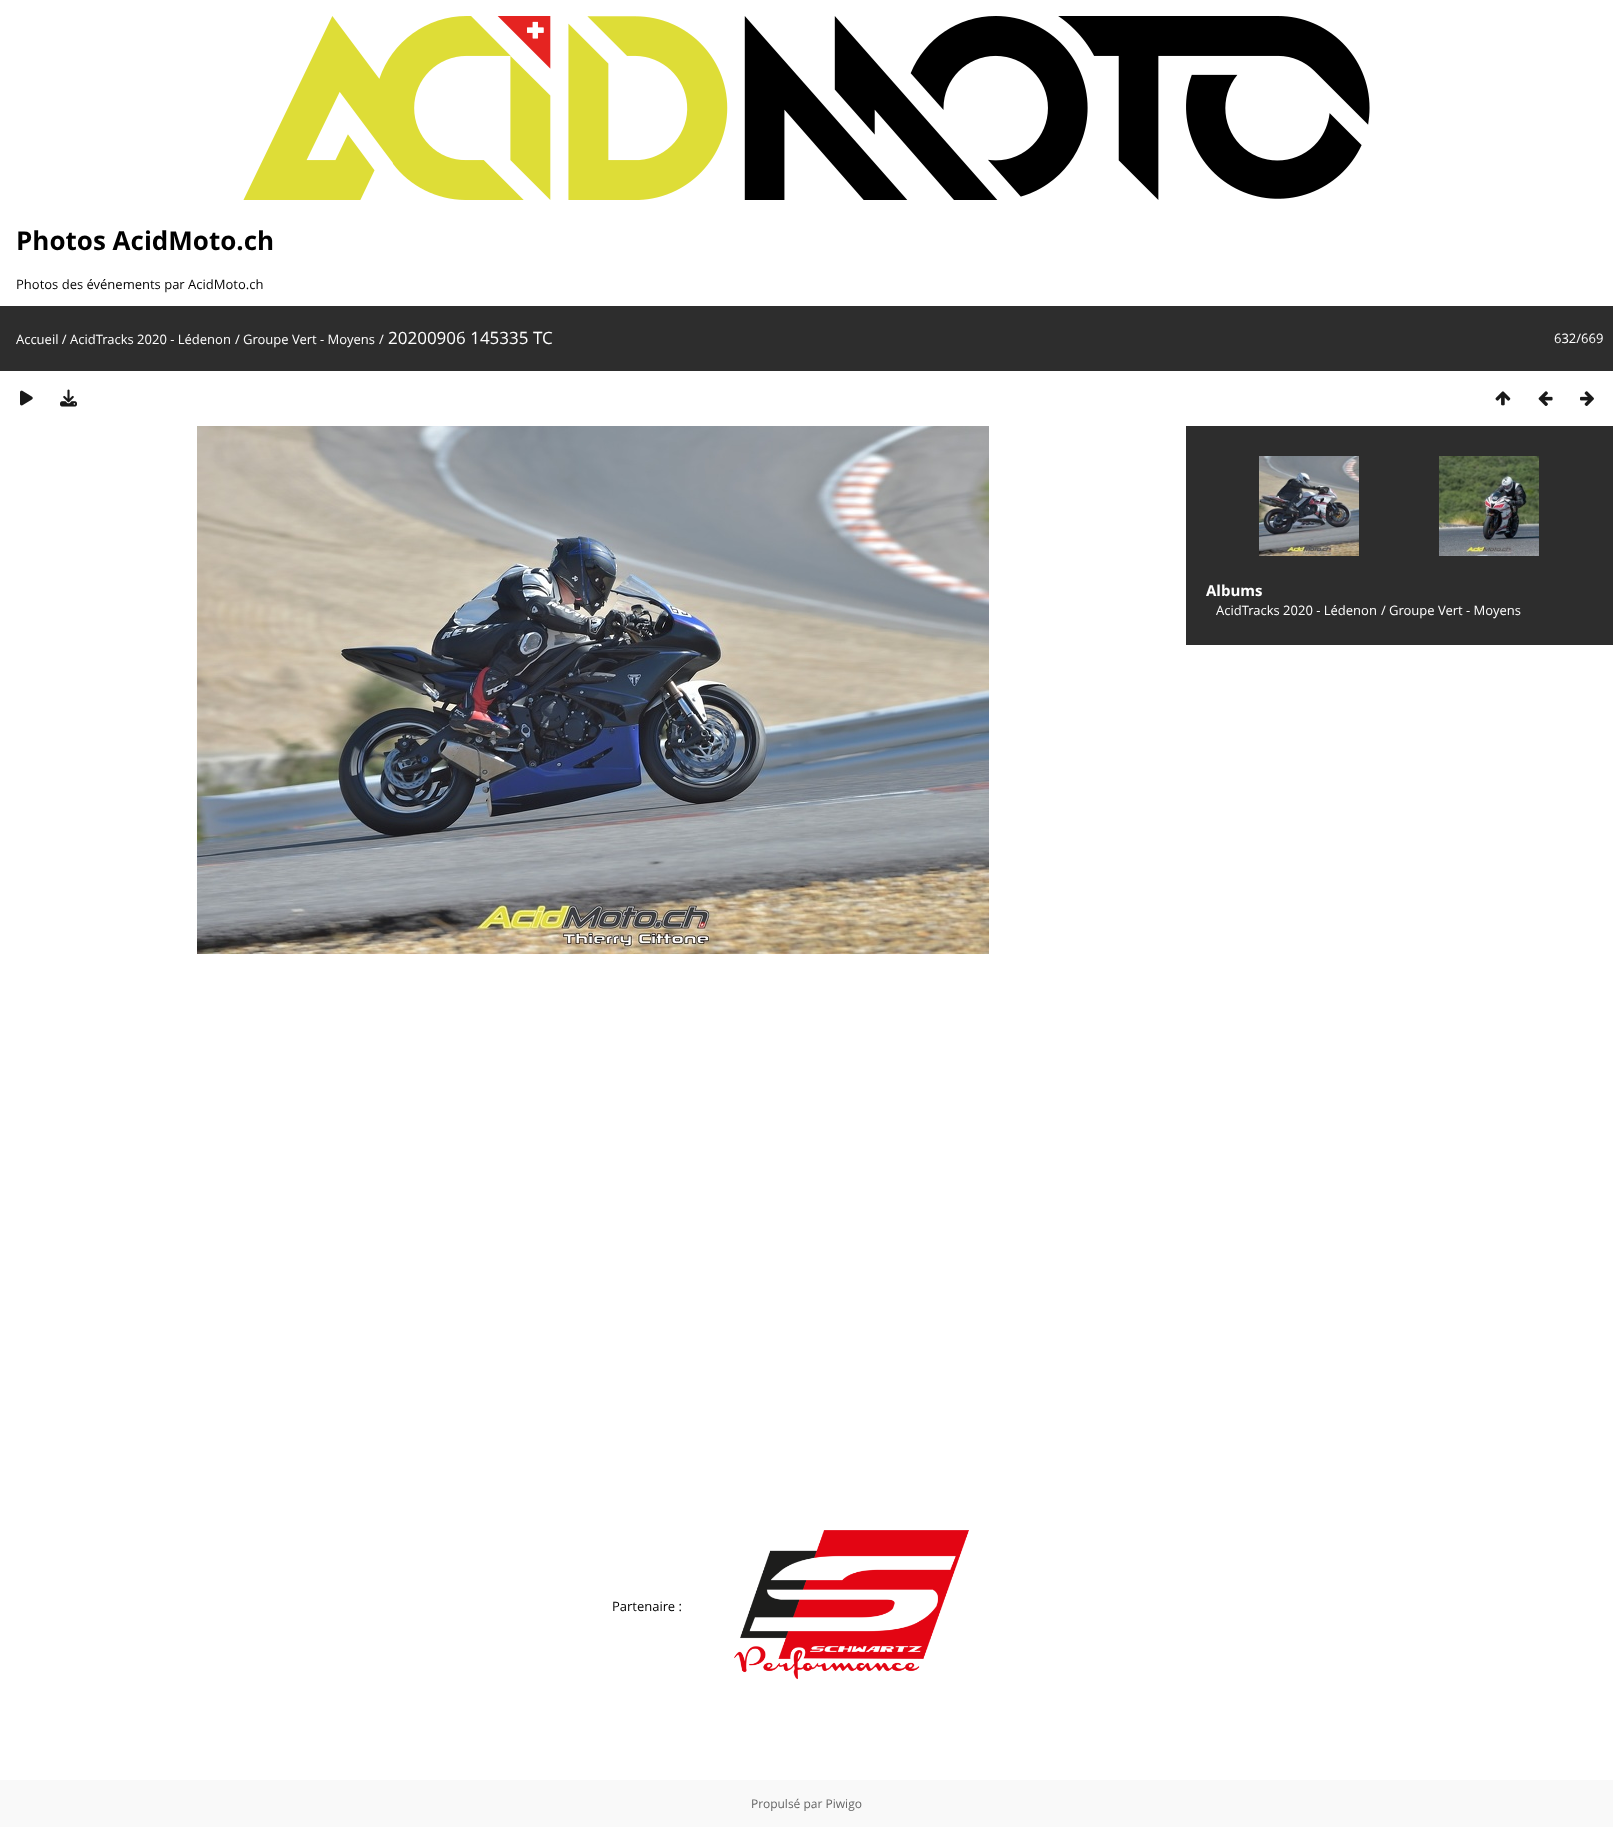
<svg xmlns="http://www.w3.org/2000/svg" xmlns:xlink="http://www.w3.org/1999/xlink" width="1613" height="1827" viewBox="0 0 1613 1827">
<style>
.cls-1{font:bold 26px Open Sans;fill:#000000}
.cls-2{font:13px Open Sans;fill:#000000}
.cls-3{font:13px Open Sans;fill:#ffffff}
.cls-4{font:17px Open Sans;fill:#ffffff}
.cls-5{font:bold 15px Open Sans;fill:#ffffff}
.cls-6{font:12px Open Sans;fill:#666666}
</style>
<rect width="100%" height="100%" fill="#ffffff"/>
<image xlink:href="image0.png" x="243" y="16" width="1127" height="184"/>
<rect fill="#2d2d2d" x="0" y="306" width="1613" height="65"/>
<image xlink:href="image1.png" x="20" y="390" width="13" height="16"/>
<image xlink:href="image2.png" x="60" y="389" width="17" height="18"/>
<image xlink:href="image3.png" x="1495" y="391" width="16" height="15"/>
<image xlink:href="image4.png" x="1538" y="391" width="15" height="15"/>
<image xlink:href="image5.png" x="1580" y="391" width="14" height="15"/>
<image xlink:href="image6.png" x="197" y="426" width="792" height="528"/>
<rect fill="#2d2d2d" x="1186" y="426" width="427" height="219"/>
<image xlink:href="image7.png" x="1259" y="456" width="100" height="100"/>
<image xlink:href="image8.png" x="1439" y="456" width="100" height="100"/>
<image xlink:href="image9.png" x="734" y="1530" width="235" height="150"/>
<rect fill="#f9f9f9" x="0" y="1780" width="1613" height="47"/>
<text class="cls-1" x="16" y="250">Photos AcidMoto.ch</text>
<text class="cls-2" x="16" y="289">Photos des événements par AcidMoto.ch</text>
<text class="cls-3" x="16" y="344">Accueil /</text>
<text class="cls-3" x="70" y="344">AcidTracks 2020 - Lédenon</text>
<text class="cls-3" x="235" y="344">/</text>
<text class="cls-3" x="243" y="344">Groupe Vert - Moyens</text>
<text class="cls-3" x="379" y="344">/</text>
<text class="cls-4" x="388" y="344">20200906 145335 TC</text>
<text class="cls-3" x="1554" y="343">632/669</text>
<text class="cls-5" x="1206" y="596">Albums</text>
<text class="cls-3" x="1216" y="615">AcidTracks 2020 - Lédenon</text>
<text class="cls-3" x="1381" y="615">/</text>
<text class="cls-3" x="1389" y="615">Groupe Vert - Moyens</text>
<text class="cls-2" x="612" y="1611">Partenaire :</text>
<text class="cls-6" x="751" y="1808">Propulsé par Piwigo</text>
</svg>
